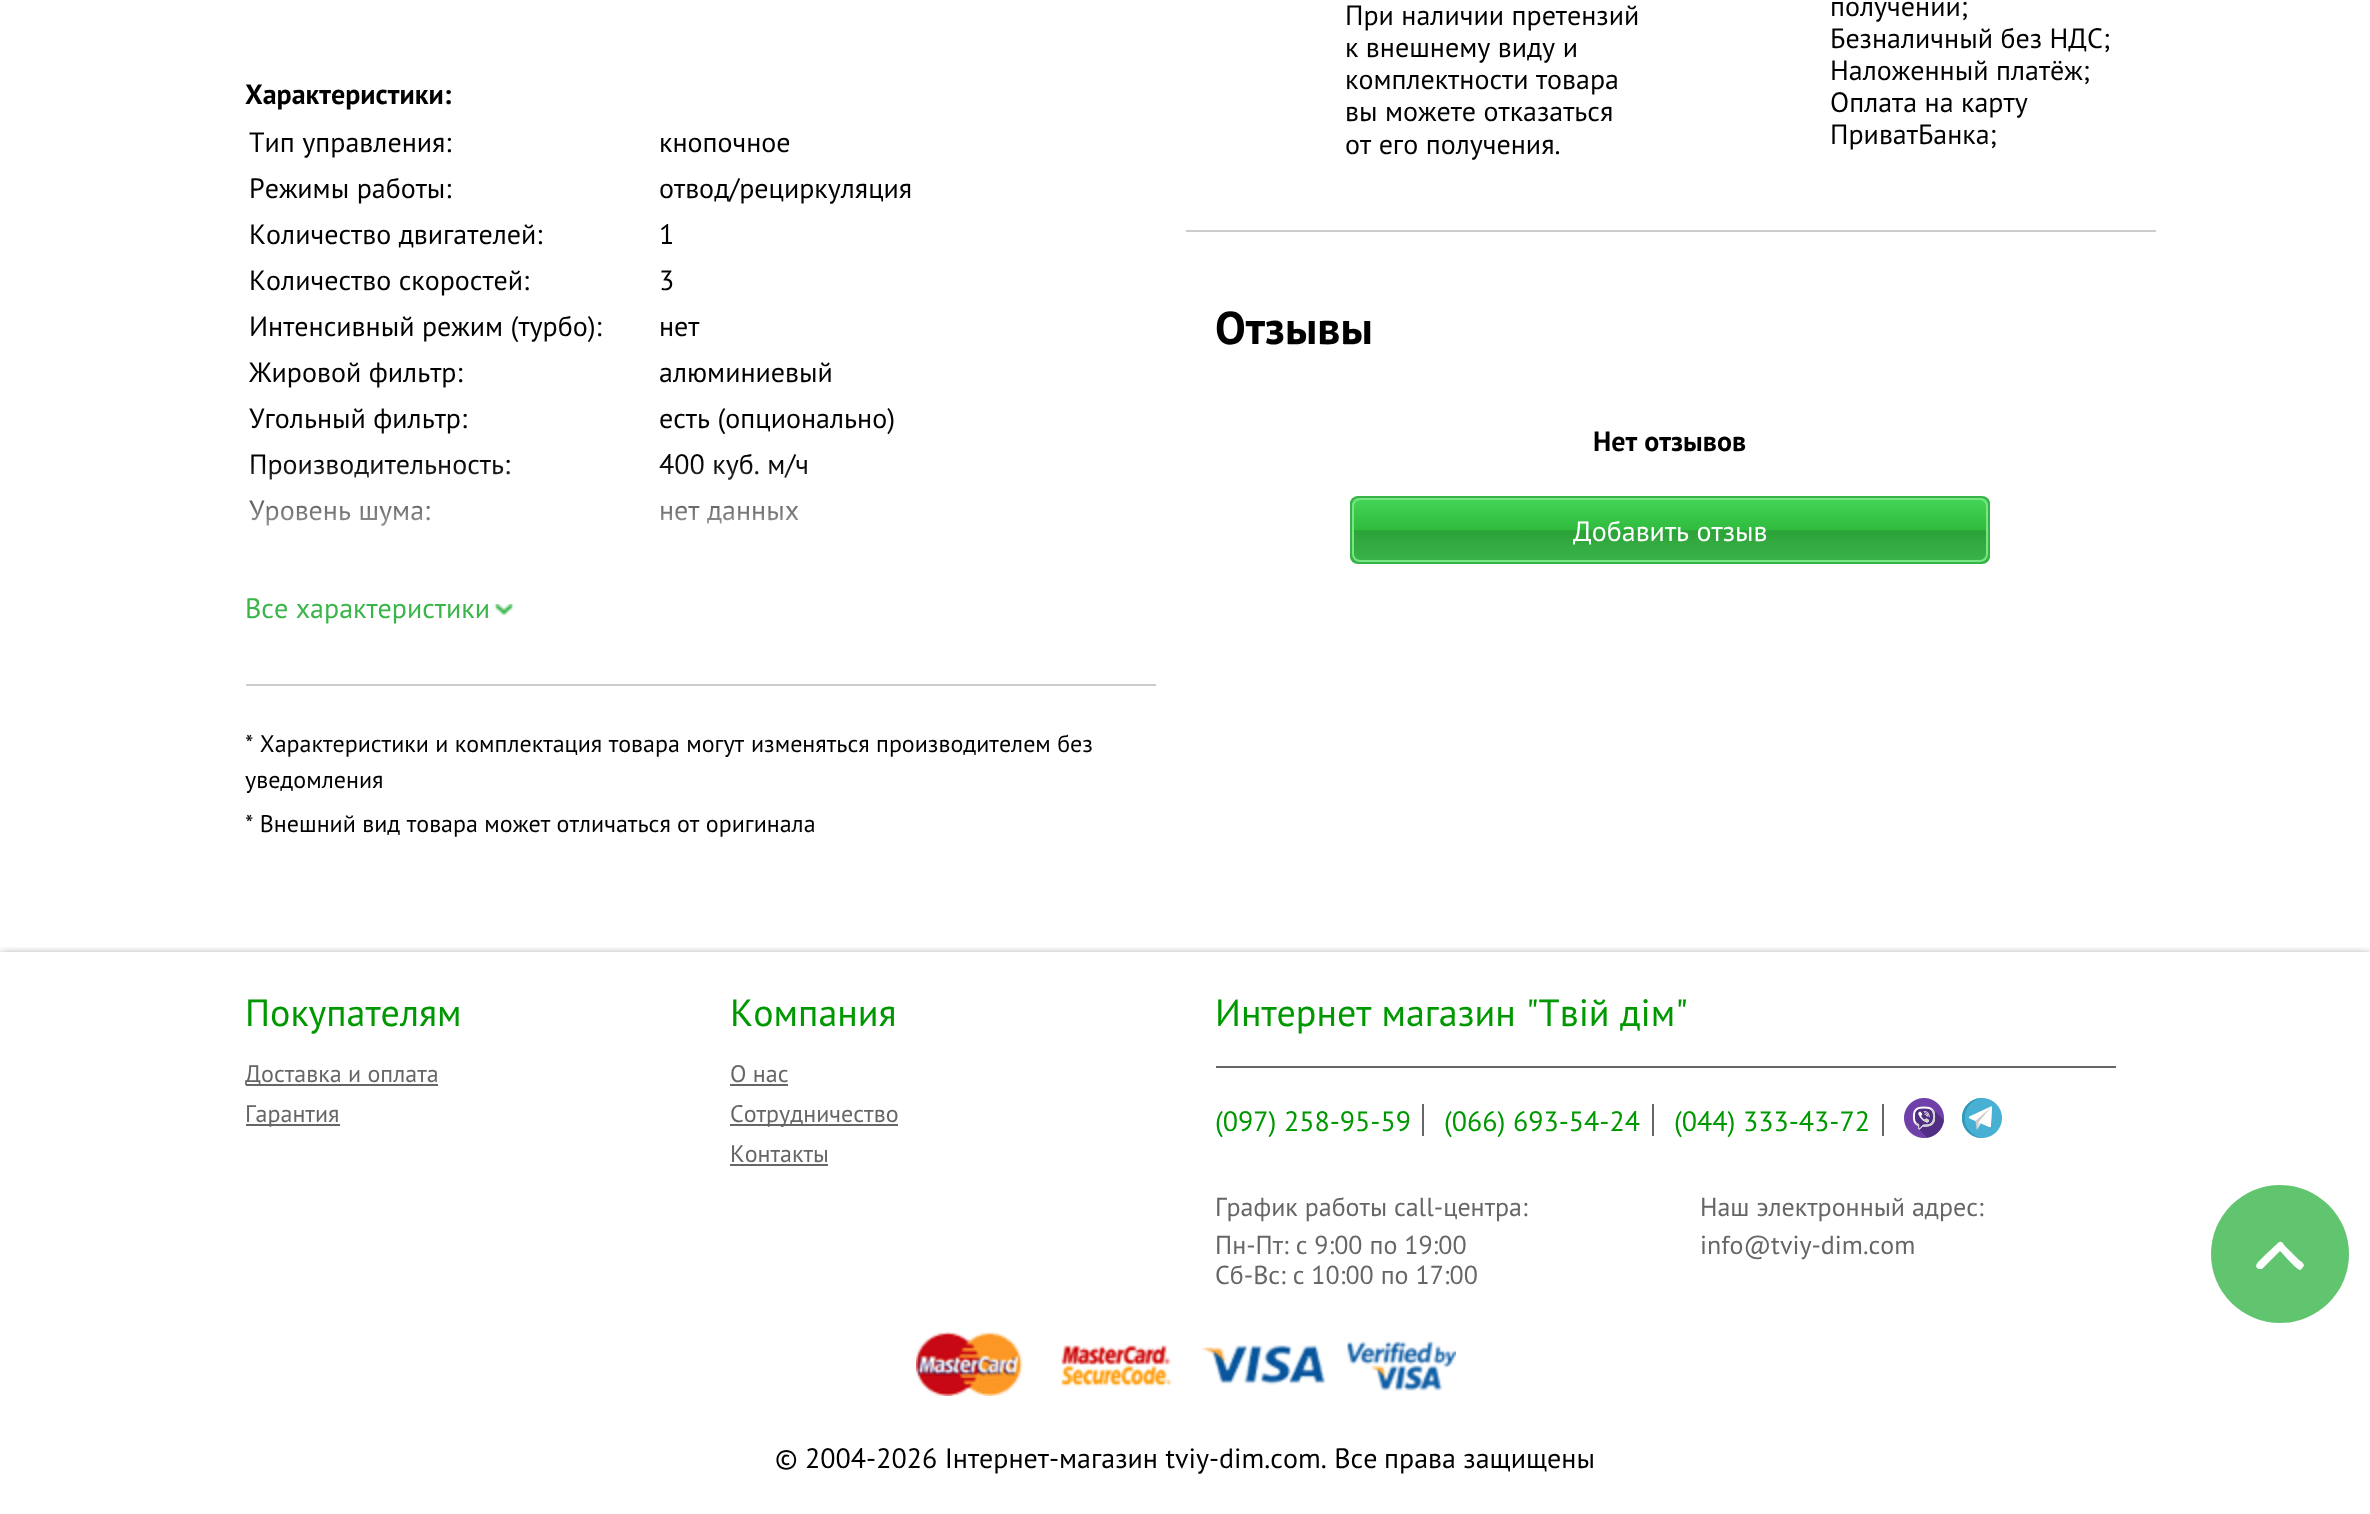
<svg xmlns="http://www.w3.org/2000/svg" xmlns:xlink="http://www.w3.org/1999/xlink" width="2370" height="1514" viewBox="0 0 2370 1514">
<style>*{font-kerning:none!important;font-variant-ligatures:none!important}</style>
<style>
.cls-1{font:bold 28px PT Sans;fill:#000000}
.cls-2{font:28px PT Sans;fill:#000000}
.cls-3{font:28px PT Sans;fill:#3ab54a}
.cls-4{font:24px PT Sans;fill:#000000}
.cls-5{font:bold 46px PT Sans;fill:#000000}
.cls-6{font:28px PT Sans;fill:#ffffff}
.cls-7{font:38px PT Sans;fill:#009800}
.cls-8{font:24px PT Sans;fill:#666666}
.cls-9{font:28px PT Sans;fill:#009800}
.cls-10{font:26px PT Sans;fill:#666666}
</style>
<defs>
<clipPath id="clip1"><rect x="1350" y="496" width="640" height="68" rx="8"/></clipPath>
<linearGradient id="g1" gradientUnits="userSpaceOnUse" x1="1670" y1="498" x2="1670" y2="562"><stop offset="0" stop-color="#44d557"/><stop offset="0.5" stop-color="#30bc3e"/><stop offset="0.5" stop-color="#2ba737"/><stop offset="0.55" stop-color="#2da439"/><stop offset="1" stop-color="#3ab54a"/></linearGradient>
<clipPath id="clip2"><rect x="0" y="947" width="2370" height="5"/></clipPath>
<linearGradient id="g2" gradientUnits="userSpaceOnUse" x1="701" y1="460" x2="701" y2="572"><stop offset="0" stop-color="#ffffff" stop-opacity="0"/><stop offset="1" stop-color="#ffffff"/></linearGradient>
</defs>
<rect width="100%" height="100%" fill="#ffffff"/>
<rect fill="#cccccc" x="246" y="684" width="910" height="2"/>
<image xlink:href="image0.png" x="494" y="604" width="20" height="12"/>
<rect fill="#cccccc" x="1186" y="230" width="970" height="2"/>
<g clip-path="url(#clip1)">
<rect fill="url(#g1)" x="1350" y="498" width="640" height="64"/>
</g>
<rect fill="none" stroke="#39b348" stroke-width="2" x="1351" y="497" width="638" height="66" rx="7"/>
<rect fill="none" stroke="#77e685" stroke-width="2" x="1353" y="499" width="634" height="62" rx="7"/>
<g clip-path="url(#clip2)">
<rect fill="#141414" fill-opacity="0.5" filter="blur(4px)" x="0" y="954" width="2370" height="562"/>
</g>
<rect fill="#666666" x="246" y="1084" width="192" height="2"/>
<rect fill="#666666" x="246" y="1124" width="94" height="2"/>
<rect fill="#666666" x="730" y="1084" width="58" height="2"/>
<rect fill="#666666" x="730" y="1124" width="168" height="2"/>
<rect fill="#666666" x="730" y="1164" width="98" height="2"/>
<rect fill="#666666" x="1216" y="1066" width="900" height="2"/>
<rect fill="#666666" x="1422" y="1104" width="2" height="32"/>
<rect fill="#666666" x="1652" y="1104" width="2" height="32"/>
<rect fill="#666666" x="1882" y="1104" width="2" height="32"/>
<image xlink:href="image1.png" x="1904" y="1098" width="40" height="40"/>
<image xlink:href="image2.png" x="1962" y="1098" width="40" height="40"/>
<image xlink:href="image3.png" x="916" y="1332" width="540" height="64"/>
<circle fill="#61c46e" cx="2280" cy="1254" r="69"/>
<path fill="#ffffff" d="M2280 1251C2283 1254 2297 1270 2300 1270C2301 1270 2302 1268 2303 1267C2306 1265 2301 1261 2299 1260L2285 1246C2284 1245 2282 1241 2280 1242H2279L2264 1256C2262 1259 2251 1266 2259 1269H2262Z"/>
<text class="cls-1" x="245" y="104">Характеристики:</text>
<text class="cls-2" x="249" y="152">Тип управления:</text>
<text class="cls-2" x="659" y="152">кнопочное</text>
<text class="cls-2" x="249" y="198">Режимы работы:</text>
<text class="cls-2" x="659" y="198">отвод/рециркуляция</text>
<text class="cls-2" x="249" y="244">Количество двигателей:</text>
<text class="cls-2" x="659" y="244">1</text>
<text class="cls-2" x="249" y="290">Количество скоростей:</text>
<text class="cls-2" x="659" y="290">3</text>
<text class="cls-2" x="249" y="336">Интенсивный режим (турбо):</text>
<text class="cls-2" x="659" y="336">нет</text>
<text class="cls-2" x="249" y="382">Жировой фильтр:</text>
<text class="cls-2" x="659" y="382">алюминиевый</text>
<text class="cls-2" x="249" y="428">Угольный фильтр:</text>
<text class="cls-2" x="659" y="428">есть (опционально)</text>
<text class="cls-2" x="249" y="474">Производительность:</text>
<text class="cls-2" x="659" y="474">400 куб. м/ч</text>
<text class="cls-2" x="249" y="520">Уровень шума:</text>
<text class="cls-2" x="659" y="520">нет данных</text>
<rect fill="url(#g2)" x="249" y="462" width="559" height="64"/>
<text class="cls-3" x="245" y="618">Все характеристики</text>
<text class="cls-4" x="245" y="752">* Характеристики и комплектация товара могут</text>
<text class="cls-4" x="751" y="752">изменяться производителем без</text>
<text class="cls-4"><tspan x="245" y="788">уведомления</tspan><tspan x="245" y="832">* Внешний вид товара может отличаться</tspan></text>
<text class="cls-4" x="677" y="832">от оригинала</text>
<text class="cls-2"><tspan x="1345" y="25">При наличии претензий</tspan><tspan x="1345" y="57">к внешнему виду и</tspan><tspan x="1345" y="89">комплектности товара</tspan><tspan x="1345" y="121">вы можете отказаться</tspan><tspan x="1345" y="154">от его получения.</tspan></text>
<text class="cls-2"><tspan x="1830" y="16">получении;</tspan><tspan x="1830" y="48">Безналичный без НДС;</tspan><tspan x="1830" y="80">Наложенный платёж;</tspan><tspan x="1830" y="112">Оплата на карту</tspan><tspan x="1830" y="144">ПриватБанка;</tspan></text>
<text class="cls-5" x="1215" y="344">Отзывы</text>
<text class="cls-1" x="1593" y="451">Нет отзывов</text>
<text class="cls-6" x="1573" y="541">Добавить отзыв</text>
<text class="cls-7" x="245" y="1026">Покупателям</text>
<text class="cls-8"><tspan x="245" y="1082">Доставка и оплата</tspan><tspan x="245" y="1122">Гарантия</tspan></text>
<text class="cls-7" x="730" y="1026">Компания</text>
<text class="cls-8"><tspan x="730" y="1082">О нас</tspan><tspan x="730" y="1122">Сотрудничество</tspan><tspan x="730" y="1162">Контакты</tspan></text>
<text class="cls-7" x="1215" y="1026">Интернет магазин "Твій</text>
<text class="cls-7" x="1620" y="1026">дім"</text>
<text class="cls-9" x="1215" y="1131">(097) 258-95-59</text>
<text class="cls-9" x="1444" y="1131">(066) 693-54-24</text>
<text class="cls-9" x="1674" y="1131">(044) 333-43-72</text>
<text class="cls-10"><tspan x="1215" y="1216">График работы call-центра:</tspan><tspan x="1215" y="1254">Пн-Пт: с 9:00 по 19:00</tspan><tspan x="1215" y="1284">Сб-Вс: с 10:00 по 17:00</tspan></text>
<text class="cls-10"><tspan x="1700" y="1216">Наш электронный адрес:</tspan><tspan x="1700" y="1254">info@tviy-dim.com</tspan></text>
<text class="cls-2" x="775" y="1468">© 2004-2026 Інтернет-магазин tviy-dim.com. Все</text>
<text class="cls-2" x="1384" y="1468">права защищены</text>
</svg>
